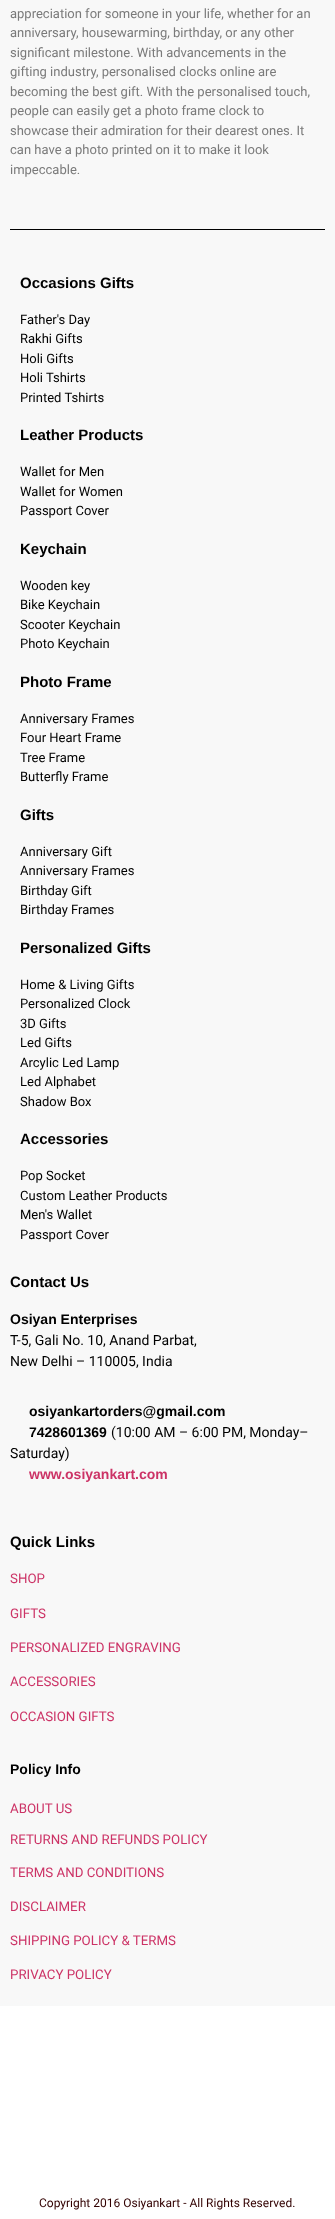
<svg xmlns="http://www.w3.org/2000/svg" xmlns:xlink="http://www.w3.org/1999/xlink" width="335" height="2219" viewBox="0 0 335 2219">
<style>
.cls-1{font:13px Roboto;fill:#7a7a7a}
.cls-2{font:bold 15px Liberation Sans;fill:#000000}
.cls-3{font:13px Roboto;fill:#000000}
.cls-4{font:bold 14px Liberation Sans;fill:#000000}
.cls-5{font:14px Roboto;fill:#000000}
.cls-6{font:bold 14px Liberation Sans;fill:#cc3366}
.cls-7{font:13.3px Roboto;fill:#cc3366}
.cls-8{font:12px Roboto;fill:#310000}
</style>
<rect width="100%" height="100%" fill="#ffffff"/>
<rect fill="#f8f8f8" x="0" y="0" width="335" height="2006"/>
<rect fill="#000000" x="10" y="229" width="315" height="1"/>
<text class="cls-1"><tspan x="10" y="18">appreciation for someone in your life, whether for an</tspan><tspan x="10" y="37">anniversary, housewarming, birthday, or any other</tspan><tspan x="10" y="57">significant milestone. With advancements in the</tspan><tspan x="10" y="76">gifting industry, personalised clocks online are</tspan><tspan x="10" y="96">becoming the best gift. With the personalised touch,</tspan><tspan x="10" y="115">people can easily get a photo frame clock to</tspan><tspan x="10" y="135">showcase their admiration for their dearest ones. It</tspan><tspan x="10" y="154">can have a photo printed on it to make it look</tspan><tspan x="10" y="174">impeccable.</tspan></text>
<text class="cls-2" x="20" y="288">Occasions Gifts</text>
<text class="cls-3"><tspan x="20" y="324">Father's Day</tspan><tspan x="20" y="343">Rakhi Gifts</tspan><tspan x="20" y="363">Holi Gifts</tspan><tspan x="20" y="382">Holi Tshirts</tspan><tspan x="20" y="402">Printed Tshirts</tspan></text>
<text class="cls-2" x="20" y="440">Leather Products</text>
<text class="cls-3"><tspan x="20" y="476">Wallet for Men</tspan><tspan x="20" y="496">Wallet for Women</tspan><tspan x="20" y="515">Passport Cover</tspan></text>
<text class="cls-2" x="20" y="554">Keychain</text>
<text class="cls-3"><tspan x="20" y="590">Wooden key</tspan><tspan x="20" y="609">Bike Keychain</tspan><tspan x="20" y="629">Scooter Keychain</tspan><tspan x="20" y="648">Photo Keychain</tspan></text>
<text class="cls-2" x="20" y="687">Photo Frame</text>
<text class="cls-3"><tspan x="20" y="723">Anniversary Frames</tspan><tspan x="20" y="742">Four Heart Frame</tspan><tspan x="20" y="762">Tree Frame</tspan><tspan x="20" y="781">Butterfly Frame</tspan></text>
<text class="cls-2" x="20" y="820">Gifts</text>
<text class="cls-3"><tspan x="20" y="856">Anniversary Gift</tspan><tspan x="20" y="875">Anniversary Frames</tspan><tspan x="20" y="895">Birthday Gift</tspan><tspan x="20" y="914">Birthday Frames</tspan></text>
<text class="cls-2" x="20" y="953">Personalized Gifts</text>
<text class="cls-3"><tspan x="20" y="989">Home &amp; Living Gifts</tspan><tspan x="20" y="1008">Personalized Clock</tspan><tspan x="20" y="1028">3D Gifts</tspan><tspan x="20" y="1047">Led Gifts</tspan><tspan x="20" y="1067">Arcylic Led Lamp</tspan><tspan x="20" y="1086">Led Alphabet</tspan><tspan x="20" y="1106">Shadow Box</tspan></text>
<text class="cls-2" x="20" y="1144">Accessories</text>
<text class="cls-3"><tspan x="20" y="1180">Pop Socket</tspan><tspan x="20" y="1200">Custom Leather Products</tspan><tspan x="20" y="1219">Men's Wallet</tspan><tspan x="20" y="1239">Passport Cover</tspan></text>
<text class="cls-2" x="10" y="1287">Contact Us</text>
<text class="cls-4" x="10" y="1324">Osiyan Enterprises</text>
<text class="cls-5"><tspan x="10" y="1345">T-5, Gali No. 10, Anand Parbat,</tspan><tspan x="10" y="1366">New Delhi – 110005, India</tspan></text>
<text class="cls-4"><tspan x="29" y="1416">osiyankartorders@gmail.com</tspan><tspan x="29" y="1437">7428601369</tspan></text>
<text class="cls-5" x="111" y="1437">(10:00 AM – 6:00 PM, Monday–</text>
<text class="cls-5" x="10" y="1458">Saturday)</text>
<text class="cls-6" x="29" y="1479">www.osiyankart.com</text>
<text class="cls-2" x="10" y="1547">Quick Links</text>
<text class="cls-7" x="10" y="1583">SHOP</text>
<text class="cls-7" x="10" y="1618">GIFTS</text>
<text class="cls-7" x="10" y="1652">PERSONALIZED ENGRAVING</text>
<text class="cls-7" x="10" y="1686">ACCESSORIES</text>
<text class="cls-7" x="10" y="1721">OCCASION GIFTS</text>
<text class="cls-4" x="10" y="1774">Policy Info</text>
<text class="cls-7" x="10" y="1813">ABOUT US</text>
<text class="cls-7" x="10" y="1844">RETURNS AND REFUNDS POLICY</text>
<text class="cls-7" x="10" y="1877">TERMS AND CONDITIONS</text>
<text class="cls-7" x="10" y="1911">DISCLAIMER</text>
<text class="cls-7" x="10" y="1945">SHIPPING POLICY &amp; TERMS</text>
<text class="cls-7" x="10" y="1979">PRIVACY POLICY</text>
<text class="cls-8" x="39" y="2207">Copyright 2016 Osiyankart - All Rights Reserved.</text>
</svg>
